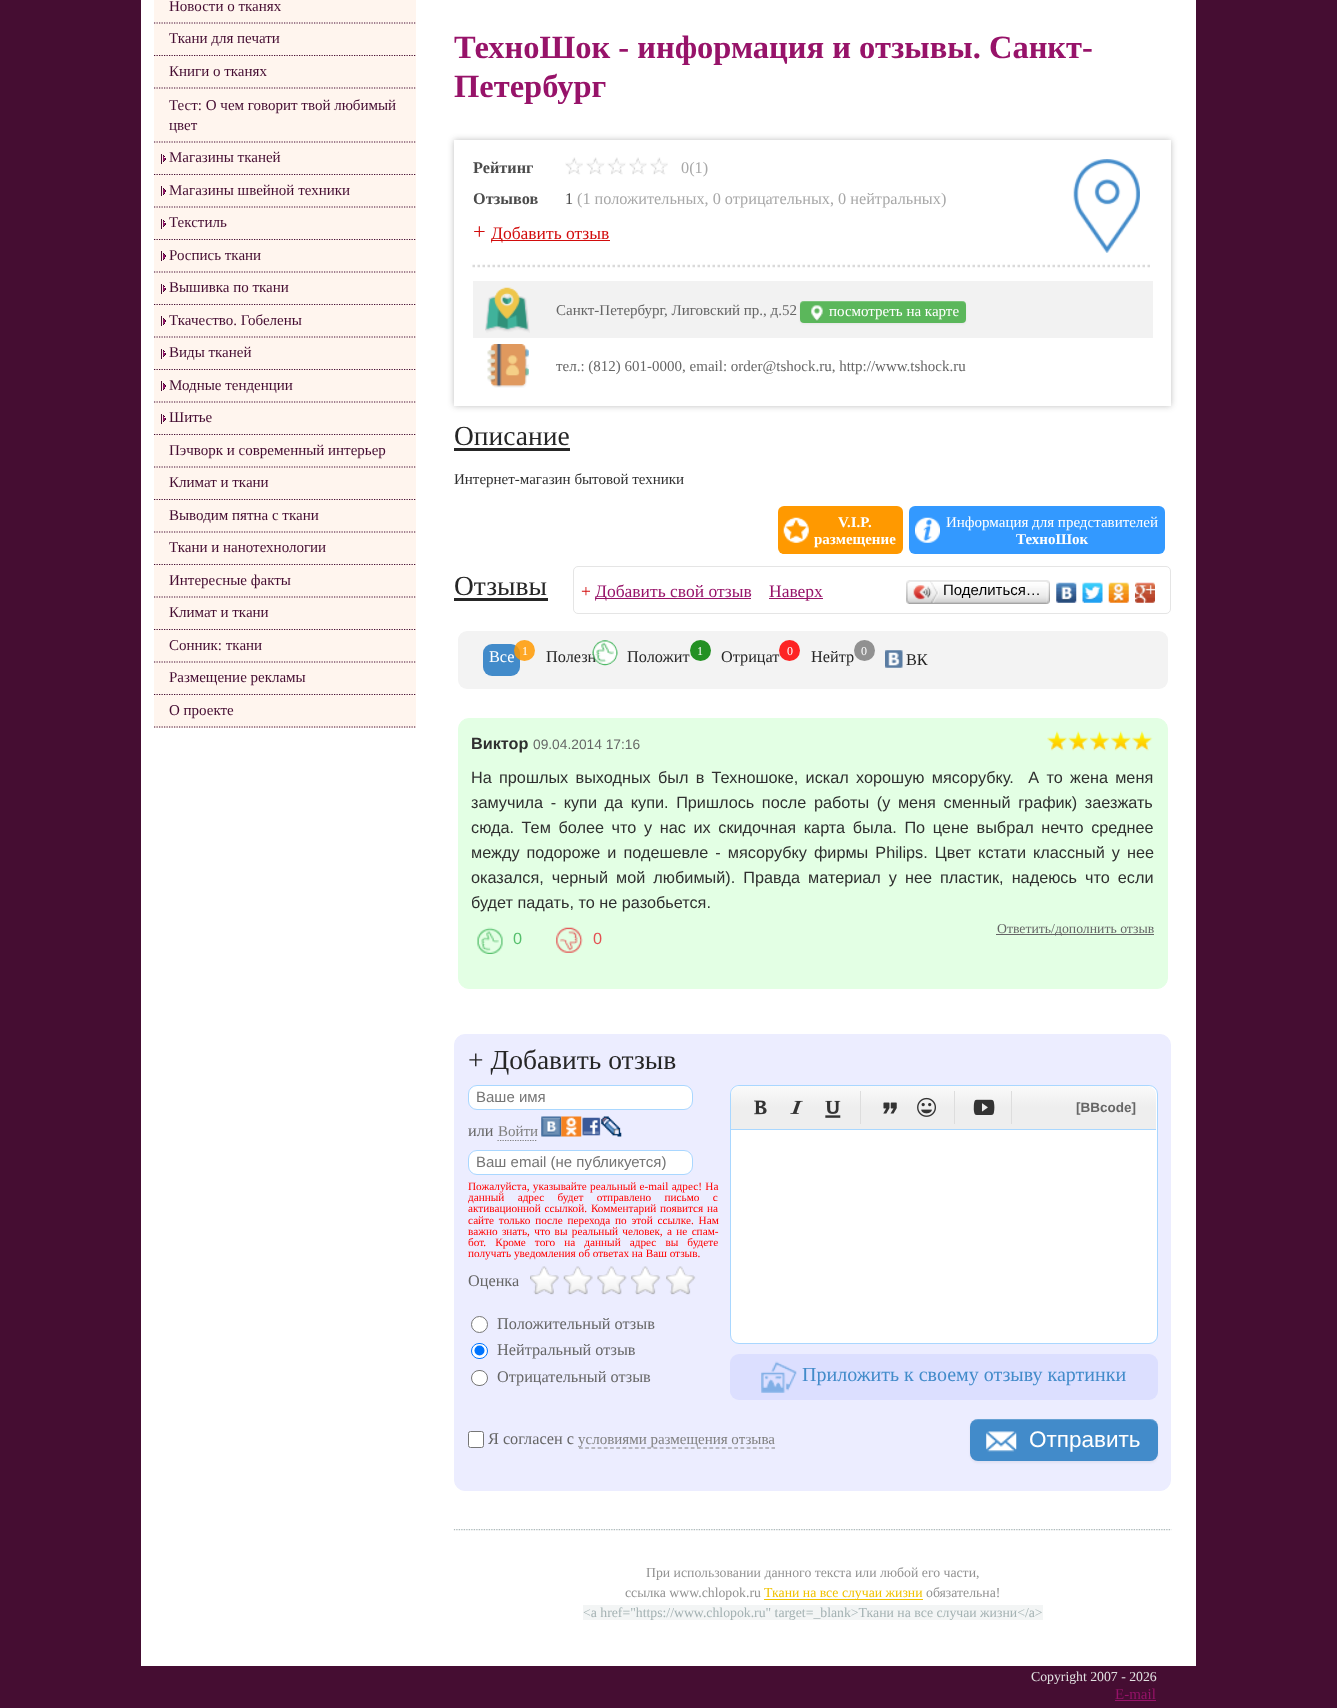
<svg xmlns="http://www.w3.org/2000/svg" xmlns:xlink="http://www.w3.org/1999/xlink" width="1337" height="1708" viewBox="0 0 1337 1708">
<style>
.cls-1{font:15px Liberation Serif;fill:#450d32}
.cls-2{font:bold 32.5px Liberation Serif;fill:#971369}
.cls-3{font:bold 16.25px Liberation Serif;fill:#4b4b4b}
.cls-4{font:16.25px Liberation Serif;fill:#a8a8a8}
.cls-5{font:16.25px Liberation Serif;fill:#4b4b4b}
.cls-6{font:22.5px Liberation Serif;fill:#d20c0c}
.cls-7{font:17.5px Liberation Serif;fill:#d20c0c}
.cls-8{font:15px Liberation Serif;fill:#666666}
.cls-9{font:15px Liberation Serif;fill:#ffffff}
.cls-10{font:27.5px Liberation Serif;fill:#262626}
.cls-11{font:15px Liberation Serif;fill:#2f2f2f}
.cls-12{font:bold 15px Liberation Serif;fill:#ffffff}
.cls-13{font:17.5px Liberation Serif;fill:#971369}
.cls-14{font:15px Liberation Sans;fill:#000000}
.cls-15{font:16.25px Liberation Serif;fill:#ffffff}
.cls-16{font:12px Liberation Serif;fill:#ffffff}
.cls-17{font:16.25px Liberation Serif;fill:#262626}
.cls-18{font:bold 16.25px Liberation Sans;fill:#2f2f2f}
.cls-19{font:13.75px Liberation Sans;fill:#666666}
.cls-20{font:16.25px Liberation Sans;fill:#2f2f2f}
.cls-21{font:13.75px Liberation Serif;fill:#666666}
.cls-22{font:16.25px Liberation Sans;fill:#56bf6c}
.cls-23{font:16.25px Liberation Sans;fill:#e35152}
.cls-24{font:15px Liberation Sans;fill:#757575}
.cls-25{font:16.25px Liberation Serif;fill:#666666}
.cls-26{font:15px Liberation Serif;fill:#808080}
.cls-27{font:11.25px Liberation Serif;fill:#ff0000}
.cls-28{font:bold 13.5px Liberation Sans;fill:#666666}
.cls-29{font:20px Liberation Serif;fill:#428bca}
.cls-30{font:22.5px Liberation Sans;fill:#ffffff}
.cls-31{font:13.75px Liberation Serif;fill:#929292}
.cls-32{font:13.75px Liberation Serif;fill:#f0c200}
.cls-33{font:13.75px Liberation Serif;fill:#a4b2b3}
.cls-34{font:13.75px Liberation Serif;fill:#e1e1e1}
.cls-35{font:15px Liberation Serif;fill:#971369}
</style>
<defs>
<clipPath id="clip1"><path d="M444 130H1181V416H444ZM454 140H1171V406H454Z" clip-rule="evenodd"/></clipPath>
<linearGradient id="g1" gradientUnits="userSpaceOnUse" x1="944" y1="1129" x2="944" y2="1086"><stop offset="0.5" stop-color="#eeeeee"/><stop offset="1" stop-color="#fafafa"/></linearGradient>
</defs>
<rect width="100%" height="100%" fill="#450d32"/>
<rect fill="#ffffff" x="141" y="0" width="1055" height="1666"/>
<rect fill="#fff5ee" x="154" y="0" width="262" height="56"/>
<path fill="none" stroke="#450d32" stroke-width="1.2" stroke-dasharray="1.25 1.25" d="M154 23H416"/>
<path fill="none" stroke="#450d32" stroke-width="1.2" stroke-dasharray="1.25 1.25" d="M154 55.5H416"/>
<rect fill="#fff5ee" x="154" y="56" width="262" height="119"/>
<path fill="none" stroke="#450d32" stroke-width="1.2" stroke-dasharray="1.25 1.25" d="M154 88H416"/>
<path fill="none" stroke="#450d32" stroke-width="1.2" stroke-dasharray="1.25 1.25" d="M154 142H416"/>
<path fill="none" stroke="#450d32" stroke-width="1.2" stroke-dasharray="1.25 1.25" d="M154 174.5H416"/>
<rect fill="#450d32" x="161" y="154" width="1" height="10"/>
<rect fill="#971369" x="163" y="156" width="1" height="5"/>
<rect fill="#450d32" x="163" y="155" width="1" height="1"/>
<rect fill="#450d32" x="163" y="161" width="1" height="1"/>
<rect fill="#971369" x="164" y="158" width="1" height="3"/>
<rect fill="#450d32" x="164" y="156" width="1" height="1"/>
<rect fill="#450d32" x="164" y="160" width="1" height="1"/>
<rect fill="#450d32" x="165" y="158" width="1" height="2"/>
<rect fill="#fff5ee" x="154" y="175" width="262" height="65"/>
<path fill="none" stroke="#450d32" stroke-width="1.2" stroke-dasharray="1.25 1.25" d="M154 207H416"/>
<rect fill="#450d32" x="161" y="186" width="1" height="10"/>
<rect fill="#971369" x="163" y="189" width="1" height="5"/>
<rect fill="#450d32" x="163" y="188" width="1" height="1"/>
<rect fill="#450d32" x="163" y="194" width="1" height="1"/>
<rect fill="#971369" x="164" y="190" width="1" height="3"/>
<rect fill="#450d32" x="164" y="189" width="1" height="1"/>
<rect fill="#450d32" x="164" y="193" width="1" height="1"/>
<rect fill="#450d32" x="165" y="190" width="1" height="2"/>
<path fill="none" stroke="#450d32" stroke-width="1.2" stroke-dasharray="1.25 1.25" d="M154 239.5H416"/>
<rect fill="#450d32" x="161" y="219" width="1" height="10"/>
<rect fill="#971369" x="163" y="221" width="1" height="5"/>
<rect fill="#450d32" x="163" y="220" width="1" height="1"/>
<rect fill="#450d32" x="163" y="226" width="1" height="1"/>
<rect fill="#971369" x="164" y="223" width="1" height="3"/>
<rect fill="#450d32" x="164" y="221" width="1" height="1"/>
<rect fill="#450d32" x="164" y="225" width="1" height="1"/>
<rect fill="#450d32" x="165" y="223" width="1" height="2"/>
<rect fill="#fff5ee" x="154" y="240" width="262" height="65"/>
<path fill="none" stroke="#450d32" stroke-width="1.2" stroke-dasharray="1.25 1.25" d="M154 272H416"/>
<rect fill="#450d32" x="161" y="251" width="1" height="10"/>
<rect fill="#971369" x="163" y="254" width="1" height="5"/>
<rect fill="#450d32" x="163" y="253" width="1" height="1"/>
<rect fill="#450d32" x="163" y="259" width="1" height="1"/>
<rect fill="#971369" x="164" y="255" width="1" height="3"/>
<rect fill="#450d32" x="164" y="254" width="1" height="1"/>
<rect fill="#450d32" x="164" y="258" width="1" height="1"/>
<rect fill="#450d32" x="165" y="255" width="1" height="2"/>
<path fill="none" stroke="#450d32" stroke-width="1.2" stroke-dasharray="1.25 1.25" d="M154 304.5H416"/>
<rect fill="#450d32" x="161" y="284" width="1" height="10"/>
<rect fill="#971369" x="163" y="286" width="1" height="5"/>
<rect fill="#450d32" x="163" y="285" width="1" height="1"/>
<rect fill="#450d32" x="163" y="291" width="1" height="1"/>
<rect fill="#971369" x="164" y="288" width="1" height="3"/>
<rect fill="#450d32" x="164" y="286" width="1" height="1"/>
<rect fill="#450d32" x="164" y="290" width="1" height="1"/>
<rect fill="#450d32" x="165" y="288" width="1" height="2"/>
<rect fill="#fff5ee" x="154" y="305" width="262" height="65"/>
<path fill="none" stroke="#450d32" stroke-width="1.2" stroke-dasharray="1.25 1.25" d="M154 337H416"/>
<rect fill="#450d32" x="161" y="316" width="1" height="10"/>
<rect fill="#971369" x="163" y="319" width="1" height="5"/>
<rect fill="#450d32" x="163" y="318" width="1" height="1"/>
<rect fill="#450d32" x="163" y="324" width="1" height="1"/>
<rect fill="#971369" x="164" y="320" width="1" height="3"/>
<rect fill="#450d32" x="164" y="319" width="1" height="1"/>
<rect fill="#450d32" x="164" y="323" width="1" height="1"/>
<rect fill="#450d32" x="165" y="320" width="1" height="2"/>
<path fill="none" stroke="#450d32" stroke-width="1.2" stroke-dasharray="1.25 1.25" d="M154 369.5H416"/>
<rect fill="#450d32" x="161" y="349" width="1" height="10"/>
<rect fill="#971369" x="163" y="351" width="1" height="5"/>
<rect fill="#450d32" x="163" y="350" width="1" height="1"/>
<rect fill="#450d32" x="163" y="356" width="1" height="1"/>
<rect fill="#971369" x="164" y="353" width="1" height="3"/>
<rect fill="#450d32" x="164" y="351" width="1" height="1"/>
<rect fill="#450d32" x="164" y="355" width="1" height="1"/>
<rect fill="#450d32" x="165" y="353" width="1" height="2"/>
<rect fill="#fff5ee" x="154" y="370" width="262" height="65"/>
<path fill="none" stroke="#450d32" stroke-width="1.2" stroke-dasharray="1.25 1.25" d="M154 402H416"/>
<rect fill="#450d32" x="161" y="381" width="1" height="10"/>
<rect fill="#971369" x="163" y="384" width="1" height="5"/>
<rect fill="#450d32" x="163" y="383" width="1" height="1"/>
<rect fill="#450d32" x="163" y="389" width="1" height="1"/>
<rect fill="#971369" x="164" y="385" width="1" height="3"/>
<rect fill="#450d32" x="164" y="384" width="1" height="1"/>
<rect fill="#450d32" x="164" y="388" width="1" height="1"/>
<rect fill="#450d32" x="165" y="385" width="1" height="2"/>
<path fill="none" stroke="#450d32" stroke-width="1.2" stroke-dasharray="1.25 1.25" d="M154 434.5H416"/>
<rect fill="#450d32" x="161" y="414" width="1" height="10"/>
<rect fill="#971369" x="163" y="416" width="1" height="5"/>
<rect fill="#450d32" x="163" y="415" width="1" height="1"/>
<rect fill="#450d32" x="163" y="421" width="1" height="1"/>
<rect fill="#971369" x="164" y="418" width="1" height="3"/>
<rect fill="#450d32" x="164" y="416" width="1" height="1"/>
<rect fill="#450d32" x="164" y="420" width="1" height="1"/>
<rect fill="#450d32" x="165" y="418" width="1" height="2"/>
<rect fill="#fff5ee" x="154" y="435" width="262" height="65"/>
<path fill="none" stroke="#450d32" stroke-width="1.2" stroke-dasharray="1.25 1.25" d="M154 467H416"/>
<path fill="none" stroke="#450d32" stroke-width="1.2" stroke-dasharray="1.25 1.25" d="M154 499.5H416"/>
<rect fill="#fff5ee" x="154" y="500" width="262" height="65"/>
<path fill="none" stroke="#450d32" stroke-width="1.2" stroke-dasharray="1.25 1.25" d="M154 532H416"/>
<path fill="none" stroke="#450d32" stroke-width="1.2" stroke-dasharray="1.25 1.25" d="M154 564.5H416"/>
<rect fill="#fff5ee" x="154" y="565" width="262" height="65"/>
<path fill="none" stroke="#450d32" stroke-width="1.2" stroke-dasharray="1.25 1.25" d="M154 597H416"/>
<path fill="none" stroke="#450d32" stroke-width="1.2" stroke-dasharray="1.25 1.25" d="M154 629.5H416"/>
<rect fill="#fff5ee" x="154" y="630" width="262" height="65"/>
<path fill="none" stroke="#450d32" stroke-width="1.2" stroke-dasharray="1.25 1.25" d="M154 662H416"/>
<path fill="none" stroke="#450d32" stroke-width="1.2" stroke-dasharray="1.25 1.25" d="M154 694.5H416"/>
<rect fill="#fff5ee" x="154" y="695" width="262" height="33"/>
<path fill="none" stroke="#450d32" stroke-width="1.2" stroke-dasharray="1.25 1.25" d="M154 727H416"/>
<g clip-path="url(#clip1)">
<rect fill="#282828" fill-opacity="0.3" filter="blur(3px)" x="454" y="140" width="717" height="266"/>
</g>
<image xlink:href="image0.png" x="565" y="157" width="18" height="18"/>
<image xlink:href="image1.png" x="586" y="157" width="19" height="18"/>
<image xlink:href="image2.png" x="607" y="157" width="19" height="18"/>
<image xlink:href="image3.png" x="629" y="157" width="18" height="18"/>
<image xlink:href="image4.png" x="650" y="157" width="18" height="18"/>
<rect fill="#d20c0c" x="491" y="240" width="119" height="1"/>
<image xlink:href="image5.png" x="1073" y="159" width="67" height="94"/>
<path fill="none" stroke="#dadada" stroke-width="2.5" stroke-dasharray="2.5 2.5" d="M472.5 266H1152.5"/>
<rect fill="#f2f2f2" x="473" y="281" width="680" height="57"/>
<image xlink:href="image6.png" x="485" y="287" width="45" height="46"/>
<rect fill="#000000" fill-opacity="0.05" filter="blur(1px)" x="800" y="303" width="166" height="21" rx="4"/>
<rect fill="#5bb75b" x="800" y="301" width="166" height="22" rx="4"/>
<path fill="#ffffff" fill-opacity="0.2" d="M804 302H962C965 302 966 304 966 306V305C966 303 964 301 962 301H804C802 301 800 303 800 305V306C800 304 802 302 804 302Z"/>
<image xlink:href="image7.png" x="811" y="305" width="12" height="17"/>
<image xlink:href="image8.png" x="487" y="344" width="42" height="44"/>
<rect fill="#262626" x="454" y="448" width="116" height="3"/>
<rect fill="#ff9900" x="778" y="506" width="125" height="48" rx="6"/>
<image xlink:href="image9.png" x="783" y="517" width="26" height="26"/>
<rect fill="#3399ff" x="909" y="506" width="256" height="48" rx="6"/>
<image xlink:href="image10.png" x="915" y="517" width="25" height="26"/>
<rect fill="#262626" x="454" y="598" width="94" height="3"/>
<rect fill="none" stroke="#e5e5e5" x="573.5" y="566.5" width="597" height="47" rx="4.5"/>
<rect fill="#971369" x="595" y="598" width="156" height="1"/>
<rect fill="#971369" x="769" y="598" width="54" height="1"/>
<image xlink:href="image11.png" x="910" y="580" width="137" height="24"/>
<image xlink:href="image12.png" x="906" y="580" width="4" height="24"/>
<image xlink:href="image13.png" x="913" y="581" width="26" height="22"/>
<image xlink:href="image14.png" x="1046" y="580" width="4" height="24"/>
<image xlink:href="image15.png" x="1056" y="582" width="21" height="21"/>
<image xlink:href="image16.png" x="1082" y="582" width="21" height="21"/>
<image xlink:href="image17.png" x="1108" y="582" width="21" height="21"/>
<image xlink:href="image18.png" x="1135" y="582" width="20" height="21"/>
<rect fill="#f3f3f3" x="458" y="631" width="710" height="58" rx="9"/>
<rect fill="#428bca" x="483" y="644" width="37" height="32" rx="9"/>
<circle fill="#ff9900" fill-opacity="0.85" cx="524.5" cy="650.5" r="10.5"/>
<circle fill="#249124" cx="700.5" cy="650.5" r="10.5"/>
<circle fill="#919191" cx="864.5" cy="650.5" r="10.5"/>
<image xlink:href="image20.png" x="885" y="650" width="18" height="18"/>
<rect fill="#e3ffe4" stroke="#e3ffe4" x="458.5" y="718.5" width="709" height="270" rx="10.5"/>
<image xlink:href="image21.png" x="1047" y="731" width="21" height="20"/>
<image xlink:href="image22.png" x="1068" y="731" width="21" height="20"/>
<image xlink:href="image23.png" x="1090" y="731" width="20" height="20"/>
<image xlink:href="image24.png" x="1111" y="731" width="20" height="20"/>
<image xlink:href="image21.png" x="1132" y="731" width="21" height="20"/>
<rect fill="#666666" x="996" y="934" width="158" height="1"/>
<image xlink:href="image25.png" x="477" y="927" width="26" height="27"/>
<image xlink:href="image26.png" x="556" y="927" width="27" height="26"/>
<rect fill="#ecedff" stroke="#ecedff" x="454.5" y="1034.5" width="716" height="456" rx="10.5"/>
<rect fill="#ffffff" stroke="#a9d7ff" x="468.5" y="1085.5" width="224" height="24" rx="8.5"/>
<path fill="none" stroke="#808080" stroke-width="1.2" stroke-dasharray="1.25 1.25" d="M497.5 1140.5H537.5"/>
<image xlink:href="image27.png" x="541" y="1116" width="21" height="21"/>
<image xlink:href="image28.png" x="561" y="1116" width="21" height="21"/>
<image xlink:href="image29.png" x="582" y="1117" width="19" height="19"/>
<image xlink:href="image30.png" x="601" y="1116" width="21" height="21"/>
<rect fill="#ffffff" stroke="#a9d7ff" x="468.5" y="1150.5" width="224" height="24" rx="8.5"/>
<image xlink:href="image31.png" x="530" y="1266" width="29" height="29"/>
<image xlink:href="image32.png" x="563" y="1266" width="30" height="29"/>
<image xlink:href="image33.png" x="597" y="1266" width="30" height="29"/>
<image xlink:href="image34.png" x="631" y="1266" width="30" height="29"/>
<image xlink:href="image34.png" x="666" y="1266" width="30" height="29"/>
<circle fill="#ffffff" stroke="#767676" cx="479.5" cy="1324.5" r="8"/>
<rect fill="#ffffff" stroke="#0075ff" x="471.5" y="1343.5" width="16" height="15" rx="7.5"/>
<circle fill="#0075ff" cx="479.5" cy="1350.5" r="5"/>
<rect fill="#ffffff" stroke="#767676" x="471.5" y="1370.5" width="16" height="15" rx="7.5"/>
<rect fill="#ffffff" stroke="#a9d7ff" x="730.5" y="1085.5" width="427" height="258" rx="8.5"/>
<path fill="url(#g1)" d="M740 1086H1147C1152 1086 1156 1090 1156 1095V1129H731V1095C731 1090 735 1086 740 1086Z"/>
<rect fill="#a9d7ff" x="731" y="1129" width="425" height="1"/>
<rect fill="#dddddd" x="860" y="1091" width="1" height="33"/>
<image xlink:href="image35.png" x="754" y="1100" width="13" height="15"/>
<image xlink:href="image36.png" x="790" y="1100" width="13" height="14"/>
<image xlink:href="image37.png" x="825" y="1100" width="16" height="18"/>
<rect fill="#dddddd" x="954" y="1091" width="1" height="33"/>
<image xlink:href="image38.png" x="883" y="1102" width="14" height="12"/>
<image xlink:href="image39.png" x="917" y="1097" width="19" height="20"/>
<rect fill="#dddddd" x="1011" y="1091" width="1" height="33"/>
<image xlink:href="image40.png" x="973" y="1099" width="22" height="16"/>
<rect fill="#dcdfff" x="730" y="1354" width="428" height="46" rx="9"/>
<image xlink:href="image41.png" x="761" y="1361" width="36" height="32"/>
<rect fill="#ffffff" stroke="#767676" x="468.5" y="1431.5" width="15" height="16" rx="2"/>
<path fill="none" stroke="#808080" stroke-width="1.2" stroke-dasharray="3.75 2.46" d="M579 1448H775"/>
<rect fill="#000000" fill-opacity="0.05" filter="blur(1px)" x="970" y="1420" width="188" height="43" rx="8"/>
<rect fill="#428bca" x="970" y="1419" width="188" height="42" rx="8"/>
<image xlink:href="image42.png" x="986" y="1431" width="31" height="21"/>
<path fill="#ffffff" fill-opacity="0.2" d="M978 1420H1150C1154 1420 1158 1423 1158 1428V1427C1158 1423 1154 1419 1150 1419H978C974 1419 970 1423 970 1427V1428C970 1423 973 1420 978 1420Z"/>
<image xlink:href="image43.png" x="453" y="1529" width="719" height="2"/>
<rect fill="#f0c200" x="764" y="1599" width="159" height="1"/>
<rect fill="#f3f5f5" x="583" y="1605" width="460" height="15"/>
<rect fill="#971369" x="1115" y="1700" width="41" height="1"/>
<text class="cls-1" x="169" y="11">Новости о тканях</text>
<text class="cls-1" x="169" y="43">Ткани для печати</text>
<text class="cls-1" x="169" y="76">Книги о тканях</text>
<text class="cls-1"><tspan x="169" y="110">Тест: О чем говорит твой любимый</tspan><tspan x="169" y="130">цвет</tspan></text>
<text class="cls-1" x="169" y="162">Магазины тканей</text>
<text class="cls-1" x="169" y="195">Магазины швейной техники</text>
<text class="cls-1" x="169" y="227">Текстиль</text>
<text class="cls-1" x="169" y="260">Роспись ткани</text>
<text class="cls-1" x="169" y="292">Вышивка по ткани</text>
<text class="cls-1" x="169" y="325">Ткачество. Гобелены</text>
<text class="cls-1" x="169" y="357">Виды тканей</text>
<text class="cls-1" x="169" y="390">Модные тенденции</text>
<text class="cls-1" x="169" y="422">Шитье</text>
<text class="cls-1" x="169" y="455">Пэчворк и современный интерьер</text>
<text class="cls-1" x="169" y="487">Климат и ткани</text>
<text class="cls-1" x="169" y="520">Выводим пятна с ткани</text>
<text class="cls-1" x="169" y="552">Ткани и нанотехнологии</text>
<text class="cls-1" x="169" y="585">Интересные факты</text>
<text class="cls-1" x="169" y="617">Климат и ткани</text>
<text class="cls-1" x="169" y="650">Сонник: ткани</text>
<text class="cls-1" x="169" y="682">Размещение рекламы</text>
<text class="cls-1" x="169" y="715">О проекте</text>
<text class="cls-2"><tspan x="454" y="58">ТехноШок - информация и отзывы. Санкт-</tspan><tspan x="454" y="97">Петербург</tspan></text>
<text class="cls-3" x="473" y="173">Рейтинг</text>
<text class="cls-4" x="681" y="173">0(1)</text>
<text class="cls-3" x="473" y="204">Отзывов</text>
<text class="cls-5" x="565" y="204">1</text>
<text class="cls-4" x="577" y="204">(1 положительных, 0 отрицательных, 0 нейтральных)</text>
<text class="cls-6" x="473" y="239">+</text>
<text class="cls-7" x="491" y="239">Добавить отзыв</text>
<text class="cls-8" x="556" y="315">Санкт-Петербург, Лиговский пр., д.52</text>
<text class="cls-9" x="829" y="316">посмотреть на карте</text>
<text class="cls-8" x="556" y="371">тел.: (812) 601-0000, email: order@tshock.ru, http://www.tshock.ru</text>
<text class="cls-10" x="454" y="445">Описание</text>
<text class="cls-11" x="454" y="484">Интернет-магазин бытовой техники</text>
<text class="cls-12" x="838" y="527">V.I.P.</text>
<text class="cls-12" x="814" y="544">размещение</text>
<text class="cls-9" x="946" y="527">Информация для представителей</text>
<text class="cls-12" x="1016" y="544">ТехноШок</text>
<text class="cls-10" x="454" y="595">Отзывы</text>
<text class="cls-7" x="581" y="597">+</text>
<text class="cls-13" x="595" y="597">Добавить свой отзыв</text>
<text class="cls-13" x="769" y="597">Наверх</text>
<text class="cls-14" x="943" y="595">Поделиться…</text>
<text class="cls-15" x="489" y="662">Все</text>
<text class="cls-16" x="522" y="655">1</text>
<text class="cls-17" x="546" y="662">Полезн</text>
<image xlink:href="image19.png" x="592" y="640" width="26" height="26"/>
<text class="cls-17" x="627" y="662">Положит</text>
<text class="cls-16" x="697" y="655">1</text>
<text class="cls-17" x="721" y="662">Отрицат</text>
<circle fill="#fd2424" cx="789.5" cy="650.5" r="10.5"/>
<text class="cls-16" x="787" y="655">0</text>
<text class="cls-17" x="811" y="662">Нейтр</text>
<text class="cls-16" x="861" y="655">0</text>
<text class="cls-17" x="906" y="665">ВК</text>
<text class="cls-18" x="471" y="749">Виктор</text>
<text class="cls-19" x="533" y="749">09.04.2014 17:16</text>
<text class="cls-20" xml:space="preserve"><tspan x="471" y="783" word-spacing="2.75">На прошлых выходных был в Техношоке, искал хорошую мясорубку.  А то жена меня</tspan><tspan x="471" y="808" word-spacing="3.1">замучила - купи да купи. Пришлось после работы (у меня сменный график) заезжать</tspan><tspan x="471" y="833" word-spacing="3.1">сюда. Тем более что у нас их скидочная карта была. По цене выбрал нечто среднее</tspan><tspan x="471" y="858" word-spacing="2.5">между подороже и подешевле - мясорубку фирмы Philips. Цвет кстати классный у нее</tspan><tspan x="471" y="883" word-spacing="3.5">оказался, черный мой любимый). Правда материал у нее пластик, надеюсь что если</tspan><tspan x="471" y="908">будет падать, то не разобьется.</tspan></text>
<text class="cls-21" x="997" y="933">Ответить/дополнить отзыв</text>
<text class="cls-22" x="513" y="944">0</text>
<text class="cls-23" x="593" y="944">0</text>
<text class="cls-10" x="468" y="1069">+ Добавить отзыв</text>
<text class="cls-24" x="476" y="1102">Ваше имя</text>
<text class="cls-25" x="468" y="1136">или</text>
<text class="cls-26" x="498" y="1136">Войти</text>
<text class="cls-24" x="476" y="1167">Ваш email (не публикуется)</text>
<text class="cls-27"><tspan x="468" y="1190" word-spacing="0.5">Пожалуйста, указывайте реальный e-mail адрес! На</tspan><tspan x="468" y="1201" word-spacing="10.5">данный адрес будет отправлено письмо с</tspan><tspan x="468" y="1212" word-spacing="1">активационной ссылкой. Комментарий появится на</tspan><tspan x="468" y="1224" word-spacing="2">сайте только после перехода по этой ссылке. Нам</tspan><tspan x="468" y="1235" word-spacing="1.5">важно знать, что вы реальный человек, а не спам-</tspan><tspan x="468" y="1246" word-spacing="6.25">бот. Кроме того на данный адрес вы будете</tspan><tspan x="468" y="1257">получать уведомления об ответах на Ваш отзыв.</tspan></text>
<text class="cls-25" x="468" y="1286">Оценка</text>
<text class="cls-25"><tspan x="497" y="1329">Положительный отзыв</tspan><tspan x="497" y="1355">Нейтральный отзыв</tspan><tspan x="497" y="1382">Отрицательный отзыв</tspan></text>
<text class="cls-28" x="1076" y="1112">[BBcode]</text>
<text class="cls-29" x="802" y="1381">Приложить к своему отзыву картинки</text>
<text class="cls-25" x="488" y="1444">Я согласен с</text>
<text class="cls-26" x="578" y="1444">условиями размещения отзыва</text>
<text class="cls-30" x="1029" y="1447">Отправить</text>
<text class="cls-31" x="646" y="1577">При использовании данного текста или любой его части,</text>
<text class="cls-31" x="625" y="1597">ссылка www.chlopok.ru</text>
<text class="cls-32" x="764" y="1597">Ткани на все случаи жизни</text>
<text class="cls-31" x="926" y="1597">обязательна!</text>
<text class="cls-33" x="583" y="1617">&lt;a href="https://www.chlopok.ru" target=_blank&gt;Ткани на все случаи жизни&lt;/a&gt;</text>
<text class="cls-34" x="1031" y="1681">Copyright 2007 - 2026</text>
<text class="cls-35" x="1115" y="1699">E-mail</text>
</svg>
